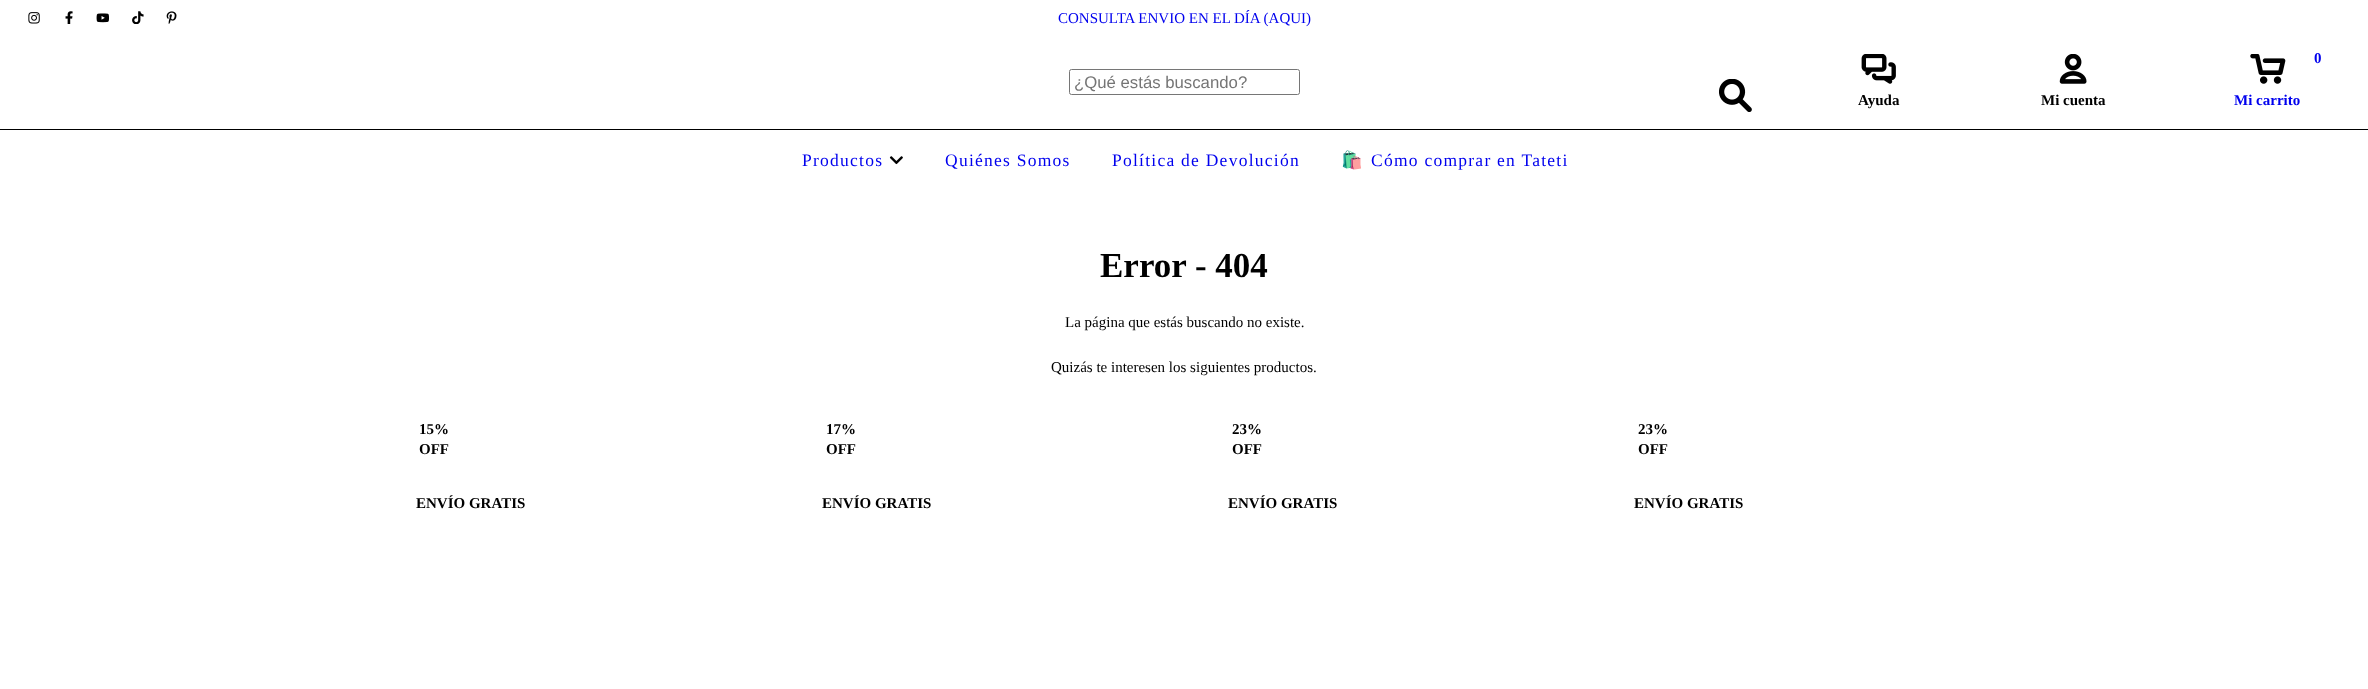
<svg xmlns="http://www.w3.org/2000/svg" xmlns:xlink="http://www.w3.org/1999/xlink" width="2368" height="689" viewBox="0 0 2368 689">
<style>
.cls-1{font:15px Liberation Serif;fill:#0000ee}
.cls-2{font:16.75px Liberation Sans;fill:#757575}
.cls-3{font:bold 15px Liberation Serif;fill:#000000}
.cls-4{font:bold 15px Liberation Serif;fill:#0000ee}
.cls-5{font:17.5px Liberation Serif;letter-spacing:1.25px;fill:#0000ee}
.cls-6{font:17.5px Noto Color Emoji;letter-spacing:1.25px;fill:#0000ee}
.cls-7{font:bold 35px Liberation Serif;fill:#000000}
.cls-8{font:15px Liberation Serif;fill:#000000}
</style>
<rect width="100%" height="100%" fill="#ffffff"/>
<image xlink:href="image0.png" x="28" y="12" width="12" height="12"/>
<image xlink:href="image1.png" x="65" y="11" width="8" height="13"/>
<image xlink:href="image2.png" x="96" y="13" width="13" height="10"/>
<image xlink:href="image3.png" x="132" y="11" width="12" height="13"/>
<image xlink:href="image4.png" x="166" y="11" width="11" height="13"/>
<rect fill="none" stroke="#767676" x="1069.5" y="69.5" width="230" height="25" rx="2"/>
<image xlink:href="image5.png" x="1719" y="79" width="33" height="33"/>
<image xlink:href="image6.png" x="1861" y="54" width="35" height="30"/>
<image xlink:href="image7.png" x="2059" y="54" width="28" height="30"/>
<image xlink:href="image8.png" x="2250" y="54" width="36" height="30"/>
<rect fill="#000000" x="0" y="129" width="2368" height="1"/>
<image xlink:href="image9.png" x="889" y="156" width="14" height="9"/>
<text class="cls-1" x="1058" y="23">CONSULTA ENVIO EN EL DÍA (AQUI)</text>
<text class="cls-2" x="1074" y="88">¿Qué estás buscando?</text>
<text class="cls-3" x="1858" y="105">Ayuda</text>
<text class="cls-3" x="2041" y="105">Mi cuenta</text>
<text class="cls-4" x="2314" y="63">0</text>
<text class="cls-4" x="2234" y="105">Mi carrito</text>
<text class="cls-5" x="802" y="166">Productos</text>
<text class="cls-5" x="945" y="166">Quiénes Somos</text>
<text class="cls-5" x="1112" y="166">Política de Devolución</text>
<text class="cls-6" x="1341" y="166">🛍️</text>
<text class="cls-5" x="1371" y="166">Cómo comprar en Tateti</text>
<text class="cls-7" x="1100" y="277">Error - 404</text>
<text class="cls-8" x="1065" y="327">La página que estás buscando no existe.</text>
<text class="cls-8" x="1051" y="372">Quizás te interesen los siguientes productos.</text>
<text class="cls-3"><tspan x="419" y="434">15%</tspan><tspan x="419" y="454">OFF</tspan></text>
<text class="cls-3" x="416" y="508">ENVÍO GRATIS</text>
<text class="cls-3"><tspan x="826" y="434">17%</tspan><tspan x="826" y="454">OFF</tspan></text>
<text class="cls-3" x="822" y="508">ENVÍO GRATIS</text>
<text class="cls-3"><tspan x="1232" y="434">23%</tspan><tspan x="1232" y="454">OFF</tspan></text>
<text class="cls-3" x="1228" y="508">ENVÍO GRATIS</text>
<text class="cls-3"><tspan x="1638" y="434">23%</tspan><tspan x="1638" y="454">OFF</tspan></text>
<text class="cls-3" x="1634" y="508">ENVÍO GRATIS</text>
</svg>
